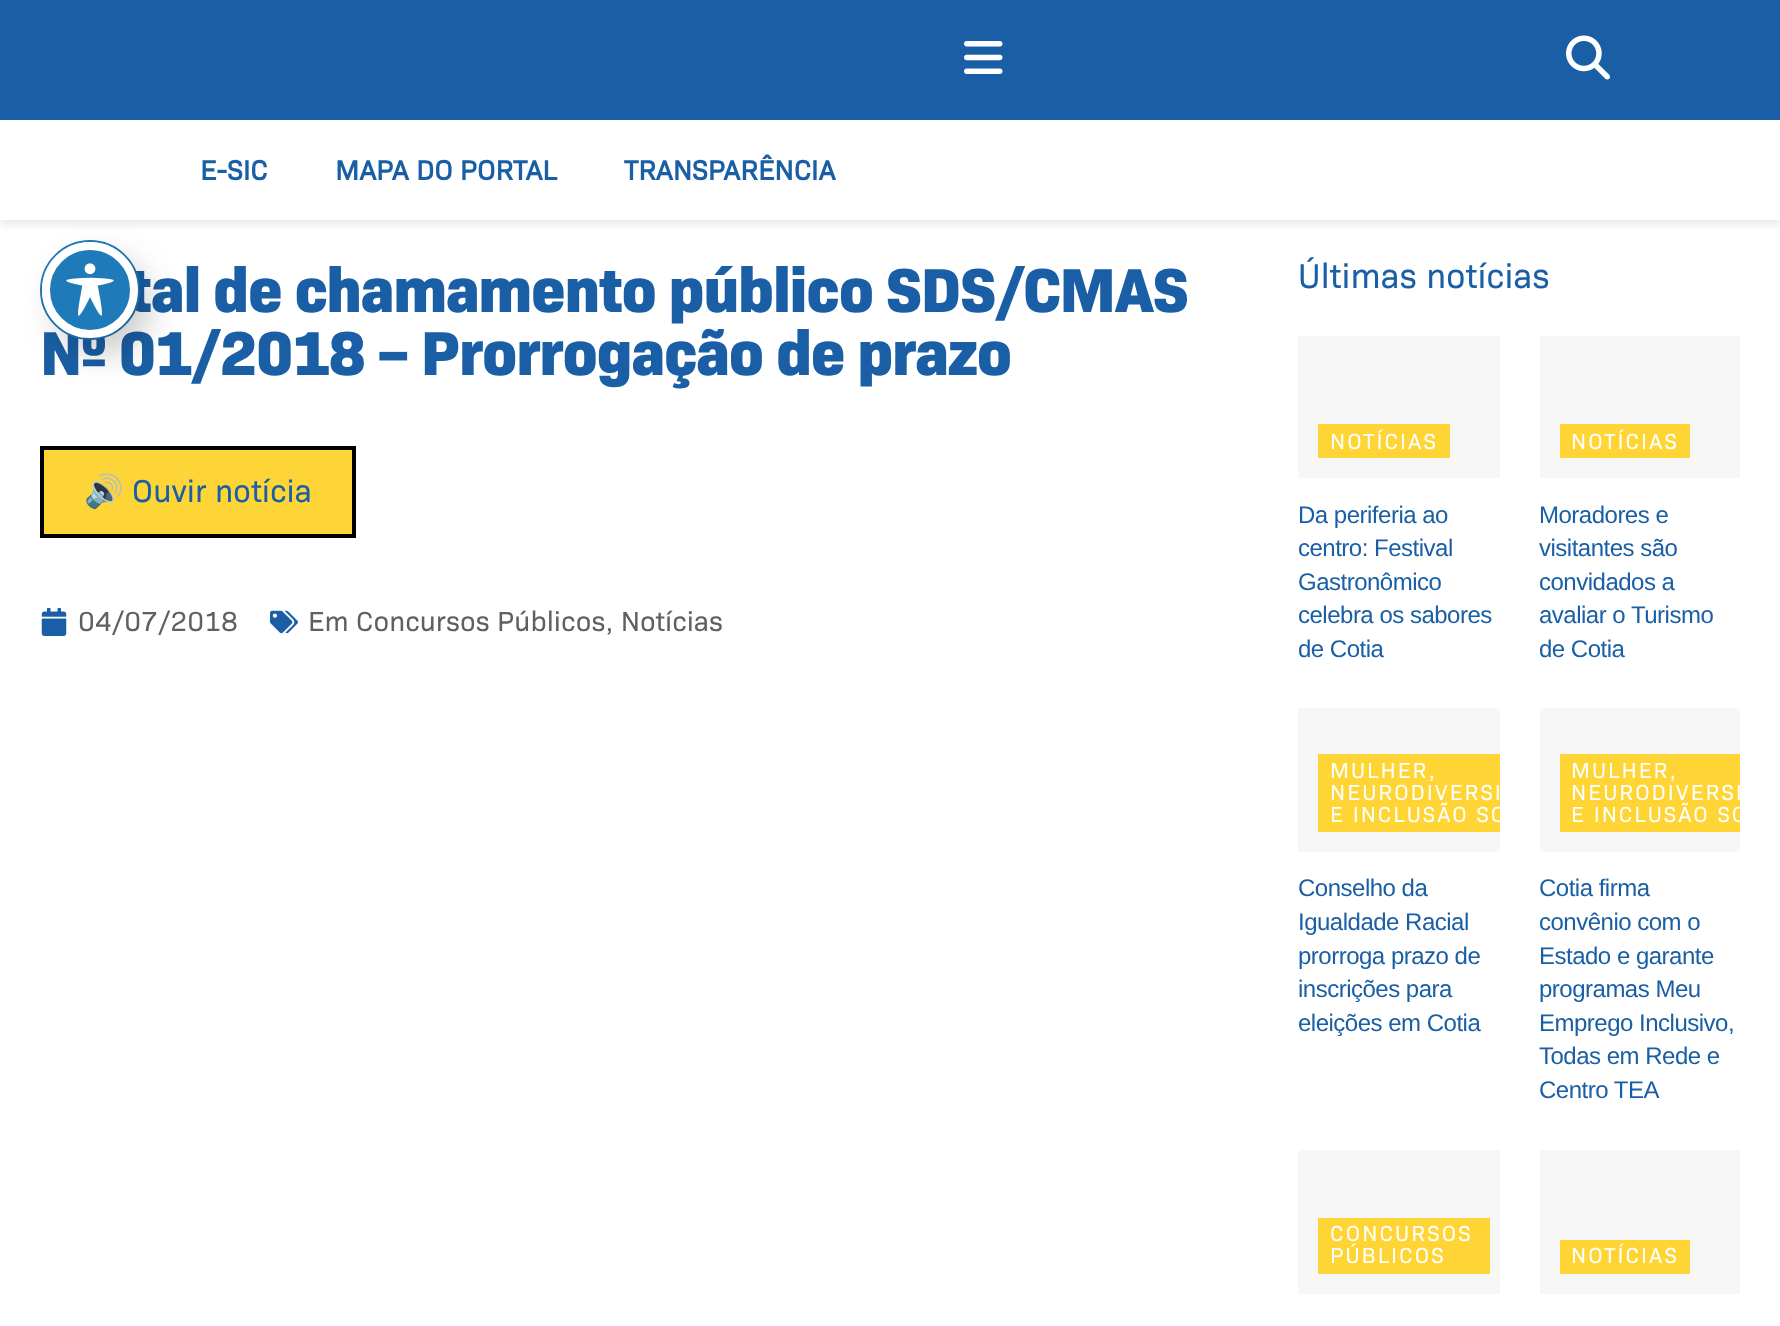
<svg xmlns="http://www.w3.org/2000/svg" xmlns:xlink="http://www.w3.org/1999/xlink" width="1780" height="1326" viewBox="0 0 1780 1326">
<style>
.cls-1{font:bold 28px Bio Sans;fill:#1a5fa5}
.cls-2{font:800 63px Bio Sans;letter-spacing:-1.25px;fill:#1a5fa5}
.cls-3{font:32px Noto Color Emoji;fill:#1a5fa5}
.cls-4{font:32px Bio Sans;fill:#1a5fa5}
.cls-5{font:28px Bio Sans;fill:#606060}
.cls-6{font:35px Bio Sans;fill:#1a5fa5}
.cls-7{font:22px Bio Sans;letter-spacing:2px;fill:#ffffff}
.cls-8{font:24px Liberation Sans;letter-spacing:-0.5px;fill:#1a5fa5}
</style>
<defs>
<clipPath id="clip1"><rect x="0" y="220" width="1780" height="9"/></clipPath>
<clipPath id="clip2"><rect x="1298" y="708" width="202" height="144"/></clipPath>
<clipPath id="clip3"><rect x="1540" y="708" width="200" height="144"/></clipPath>
</defs>
<rect width="100%" height="100%" fill="#ffffff"/>
<g clip-path="url(#clip1)">
<rect fill="#000000" fill-opacity="0.1" filter="blur(6px)" x="0" y="4" width="1780" height="220"/>
</g>
<rect fill="#1a5fa5" x="0" y="0" width="1780" height="120"/>
<image xlink:href="image0.png" x="964" y="41" width="39" height="33"/>
<image xlink:href="image1.png" x="1566" y="35" width="44" height="45"/>
<rect fill="#fed536" stroke="#000000" stroke-width="4" x="42" y="448" width="312" height="88"/>
<image xlink:href="image2.png" x="41" y="608" width="26" height="28"/>
<image xlink:href="image3.png" x="270" y="610" width="28" height="24"/>
<rect fill="#f7f7f7" x="1298" y="336" width="202" height="142"/>
<rect fill="#ffd536" x="1318" y="424" width="132" height="34"/>
<rect fill="#f7f7f7" x="1540" y="336" width="200" height="142"/>
<rect fill="#ffd536" x="1560" y="424" width="130" height="34"/>
<rect fill="#f7f7f7" x="1298" y="708" width="202" height="144"/>
<rect fill="#ffd536" x="1318" y="754" width="182" height="78"/>
<rect fill="#f7f7f7" x="1540" y="708" width="200" height="144"/>
<rect fill="#ffd536" x="1560" y="754" width="180" height="78"/>
<rect fill="#f7f7f7" x="1298" y="1150" width="202" height="144"/>
<rect fill="#ffd536" x="1318" y="1218" width="172" height="56"/>
<rect fill="#f7f7f7" x="1540" y="1150" width="200" height="144"/>
<rect fill="#ffd536" x="1560" y="1240" width="130" height="34"/>
<text class="cls-1" x="200" y="180">E-SIC</text>
<text class="cls-1" x="335" y="180">MAPA DO PORTAL</text>
<text class="cls-1" x="624" y="180">TRANSPARÊNCIA</text>
<text class="cls-2" x="128" y="312">tal de chamamento público SDS/CMAS</text>
<text class="cls-2" x="40" y="375">Nº 01/2018 – Prorrogação de prazo</text>
<text class="cls-3" x="84" y="502">🔊</text>
<text class="cls-4" x="132" y="502">Ouvir notícia</text>
<text class="cls-5" x="78" y="631">04/07/2018</text>
<text class="cls-5" x="308" y="631">Em Concursos Públicos, Notícias</text>
<text class="cls-6" x="1298" y="288">Últimas notícias</text>
<text class="cls-7" x="1330" y="449">NOTÍCIAS</text>
<text class="cls-8"><tspan x="1298" y="523">Da periferia ao</tspan><tspan x="1298" y="556">centro: Festival</tspan><tspan x="1298" y="590">Gastronômico</tspan><tspan x="1298" y="623">celebra os sabores</tspan><tspan x="1298" y="657">de Cotia</tspan></text>
<text class="cls-7" x="1571" y="449">NOTÍCIAS</text>
<text class="cls-8"><tspan x="1539" y="523">Moradores e</tspan><tspan x="1539" y="556">visitantes são</tspan><tspan x="1539" y="590">convidados a</tspan><tspan x="1539" y="623">avaliar o Turismo</tspan><tspan x="1539" y="657">de Cotia</tspan></text>
<text class="cls-7"><tspan x="1330" y="778">MULHER,</tspan><tspan x="1330" y="800">NEURODIVERSI</tspan></text>
<g clip-path="url(#clip2)">
<text class="cls-7" x="1330" y="822">E INCLUSÃO SO</text>
</g>
<text class="cls-8"><tspan x="1298" y="896">Conselho da</tspan><tspan x="1298" y="930">Igualdade Racial</tspan><tspan x="1298" y="964">prorroga prazo de</tspan><tspan x="1298" y="997">inscrições para</tspan><tspan x="1298" y="1031">eleições em Cotia</tspan></text>
<text class="cls-7"><tspan x="1571" y="778">MULHER,</tspan><tspan x="1571" y="800">NEURODIVERSI</tspan></text>
<g clip-path="url(#clip3)">
<text class="cls-7" x="1571" y="822">E INCLUSÃO SO</text>
</g>
<text class="cls-8"><tspan x="1539" y="896">Cotia firma</tspan><tspan x="1539" y="930">convênio com o</tspan><tspan x="1539" y="964">Estado e garante</tspan><tspan x="1539" y="997">programas Meu</tspan><tspan x="1539" y="1031">Emprego Inclusivo,</tspan><tspan x="1539" y="1064">Todas em Rede e</tspan><tspan x="1539" y="1098">Centro TEA</tspan></text>
<text class="cls-7"><tspan x="1330" y="1241">CONCURSOS</tspan><tspan x="1330" y="1263">PÚBLICOS</tspan></text>
<text class="cls-7" x="1571" y="1263">NOTÍCIAS</text>
<circle fill="none" stroke="#1e7ab9" stroke-width="2" cx="90" cy="290" r="49"/>
<rect fill="#000000" fill-opacity="0.2" filter="blur(16px)" x="54" y="258" width="96" height="96" rx="48"/>
<circle fill="#1e7ab9" stroke="#ffffff" stroke-width="8" cx="90" cy="290" r="44"/>
<image xlink:href="image4.png" x="66" y="263" width="48" height="53"/>
</svg>
